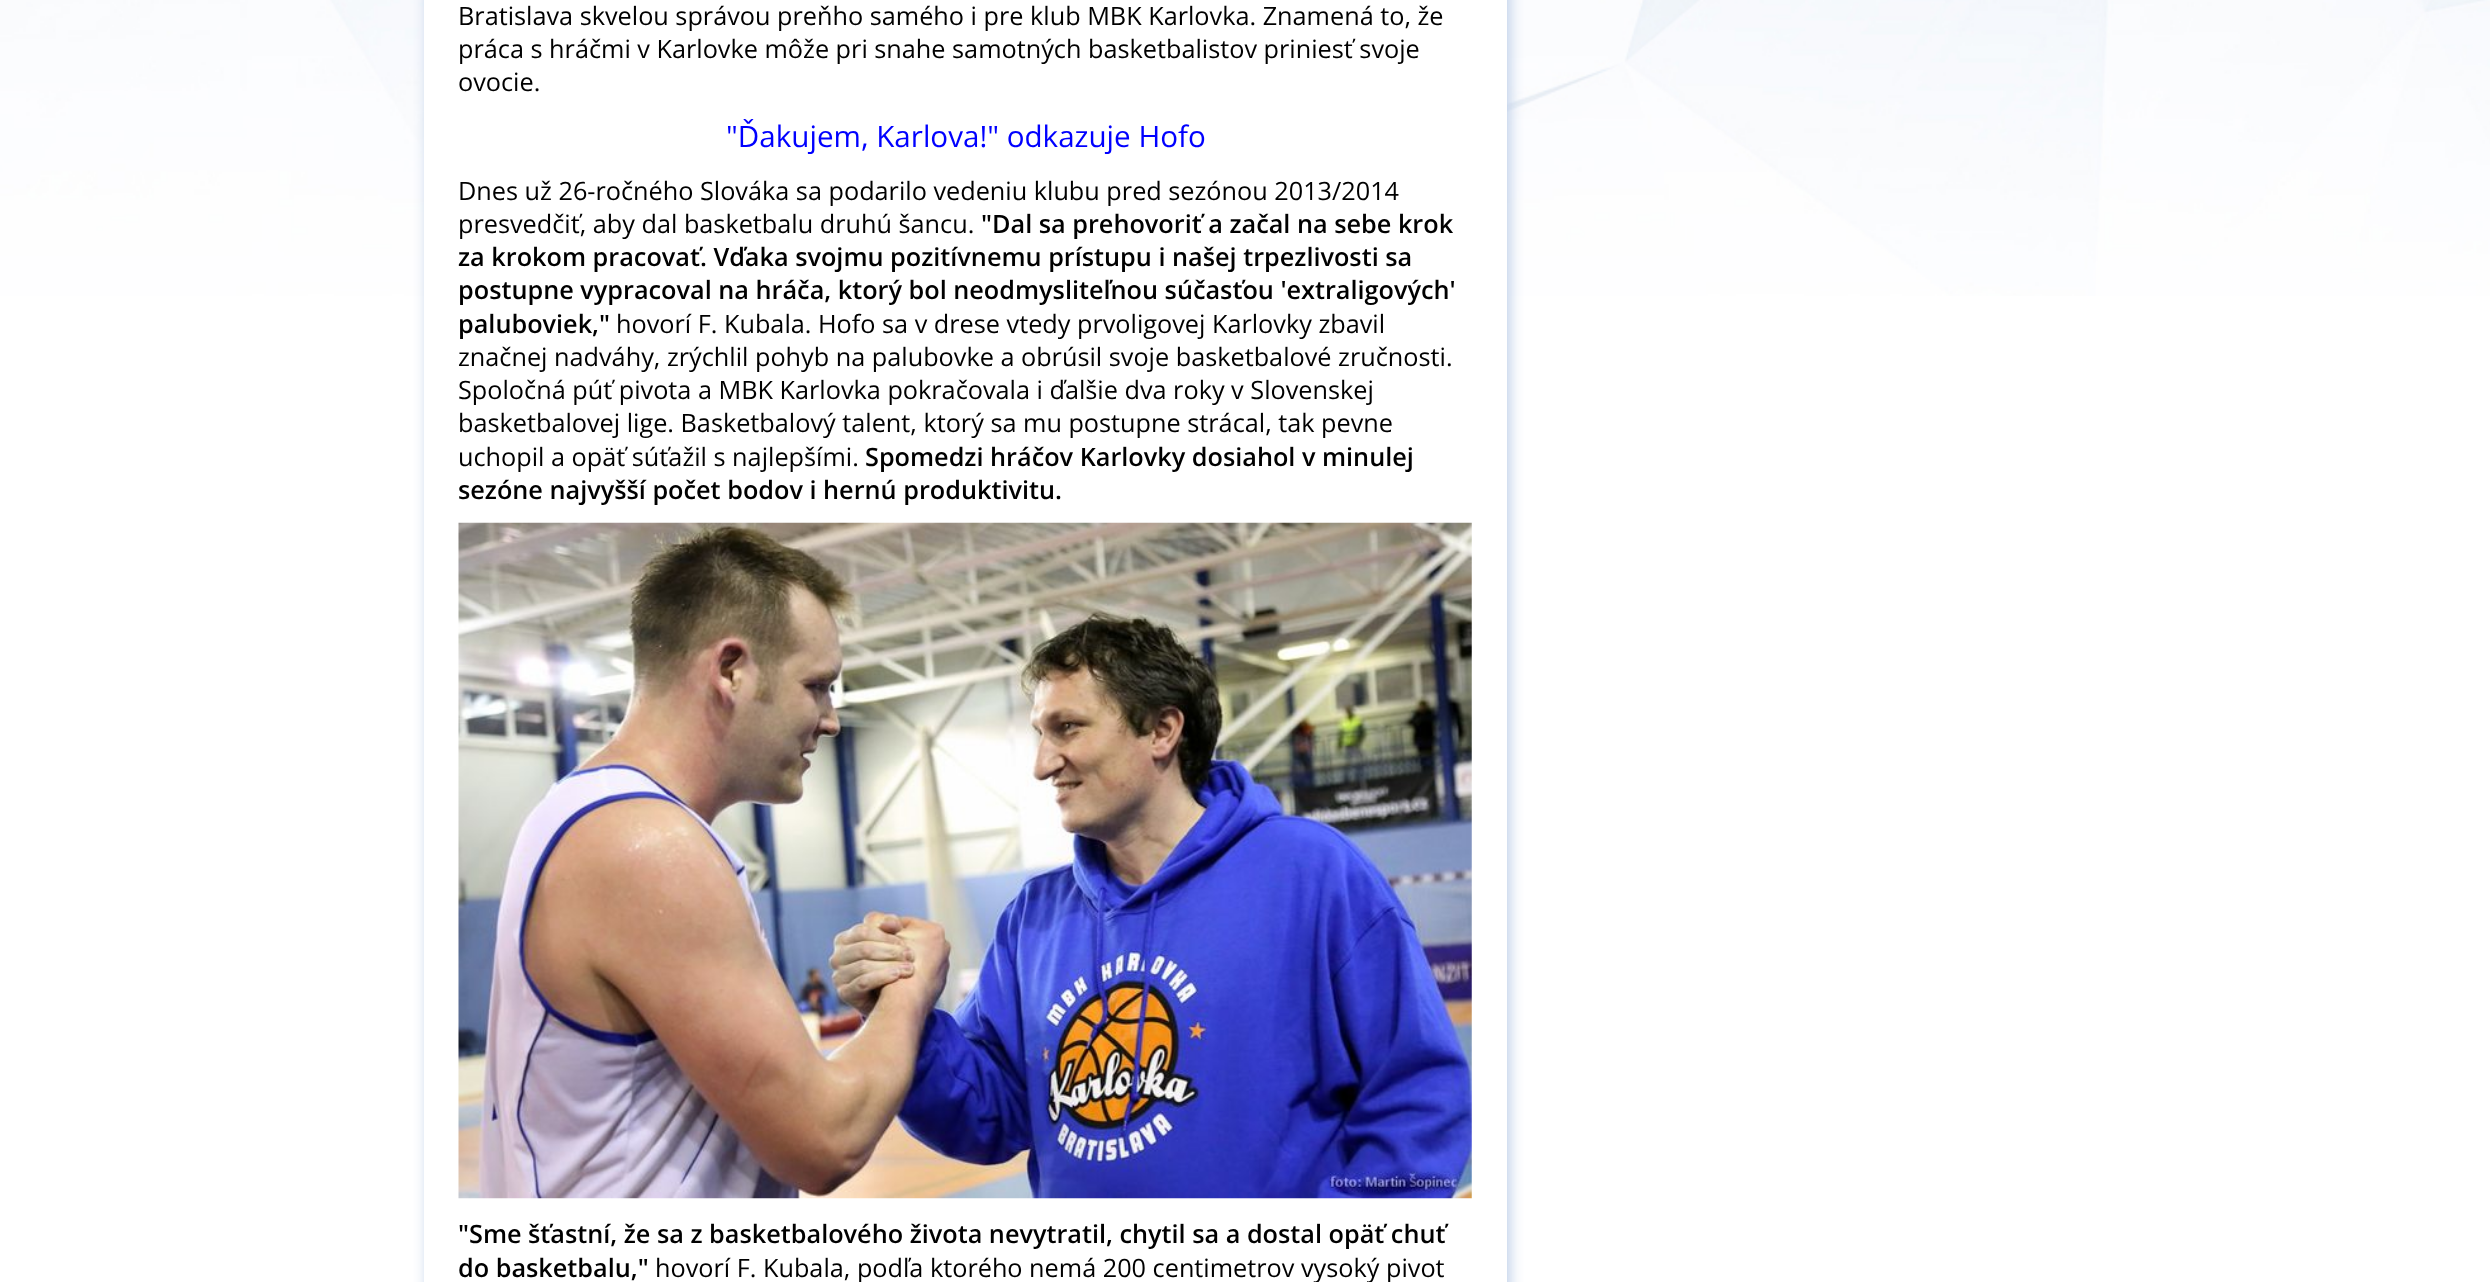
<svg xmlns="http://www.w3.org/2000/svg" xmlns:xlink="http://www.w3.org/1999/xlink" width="2490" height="1282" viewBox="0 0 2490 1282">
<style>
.cls-1{font:25.25px Open Sans;fill:#000000}
.cls-2{font:29.6px Open Sans;fill:#0000ff}
.cls-3{font:600 25.25px Open Sans;fill:#000000}
</style>
<rect width="100%" height="100%" fill="#ffffff"/>
<image xlink:href="image0.png" x="0" y="0" width="2490" height="296"/>
<rect fill="#bdcee8" filter="blur(7px)" x="427" y="-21" width="1083" height="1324"/>
<rect fill="#ffffff" x="424" y="0" width="1083" height="1282"/>
<image xlink:href="image1.png" x="458" y="522" width="1014" height="677"/>
<text class="cls-1"><tspan x="458" y="25">Bratislava skvelou správou preňho samého i pre klub MBK Karlovka. Znamená to, že</tspan><tspan x="458" y="58">práca s hráčmi v Karlovke môže pri snahe samotných basketbalistov priniesť svoje</tspan><tspan x="458" y="91">ovocie.</tspan></text>
<text class="cls-2" x="726" y="147">"Ďakujem, Karlova!" odkazuje Hofo</text>
<text class="cls-1"><tspan x="458" y="200">Dnes už 26-ročného Slováka sa podarilo vedeniu klubu pred sezónou 2013/2014</tspan><tspan x="458" y="233">presvedčiť, aby dal basketbalu druhú šancu.</tspan></text>
<text class="cls-3" x="981" y="233">"Dal sa prehovoriť a začal na sebe krok</text>
<text class="cls-3"><tspan x="458" y="266">za krokom pracovať. Vďaka svojmu pozitívnemu prístupu i našej trpezlivosti sa</tspan><tspan x="458" y="299">postupne vypracoval na hráča, ktorý bol neodmysliteľnou súčasťou 'extraligových'</tspan><tspan x="458" y="333">paluboviek,"</tspan></text>
<text class="cls-1" x="616" y="333">hovorí F. Kubala. Hofo sa v drese vtedy prvoligovej Karlovky zbavil</text>
<text class="cls-1"><tspan x="458" y="366">značnej nadváhy, zrýchlil pohyb na palubovke a obrúsil svoje basketbalové zručnosti.</tspan><tspan x="458" y="399">Spoločná púť pivota a MBK Karlovka pokračovala i ďalšie dva roky v Slovenskej</tspan><tspan x="458" y="432">basketbalovej lige. Basketbalový talent, ktorý sa mu postupne strácal, tak pevne</tspan><tspan x="458" y="466">uchopil a opäť súťažil s najlepšími.</tspan></text>
<text class="cls-3" x="865" y="466">Spomedzi hráčov Karlovky dosiahol v minulej</text>
<text class="cls-3" x="458" y="499">sezóne najvyšší počet bodov i hernú produktivitu.</text>
<text class="cls-3"><tspan x="458" y="1243">"Sme šťastní, že sa z basketbalového života nevytratil, chytil sa a dostal opäť chuť</tspan><tspan x="458" y="1277">do basketbalu,"</tspan></text>
<text class="cls-1" x="655" y="1277">hovorí F. Kubala, podľa ktorého nemá 200 centimetrov vysoký pivot</text>
</svg>
